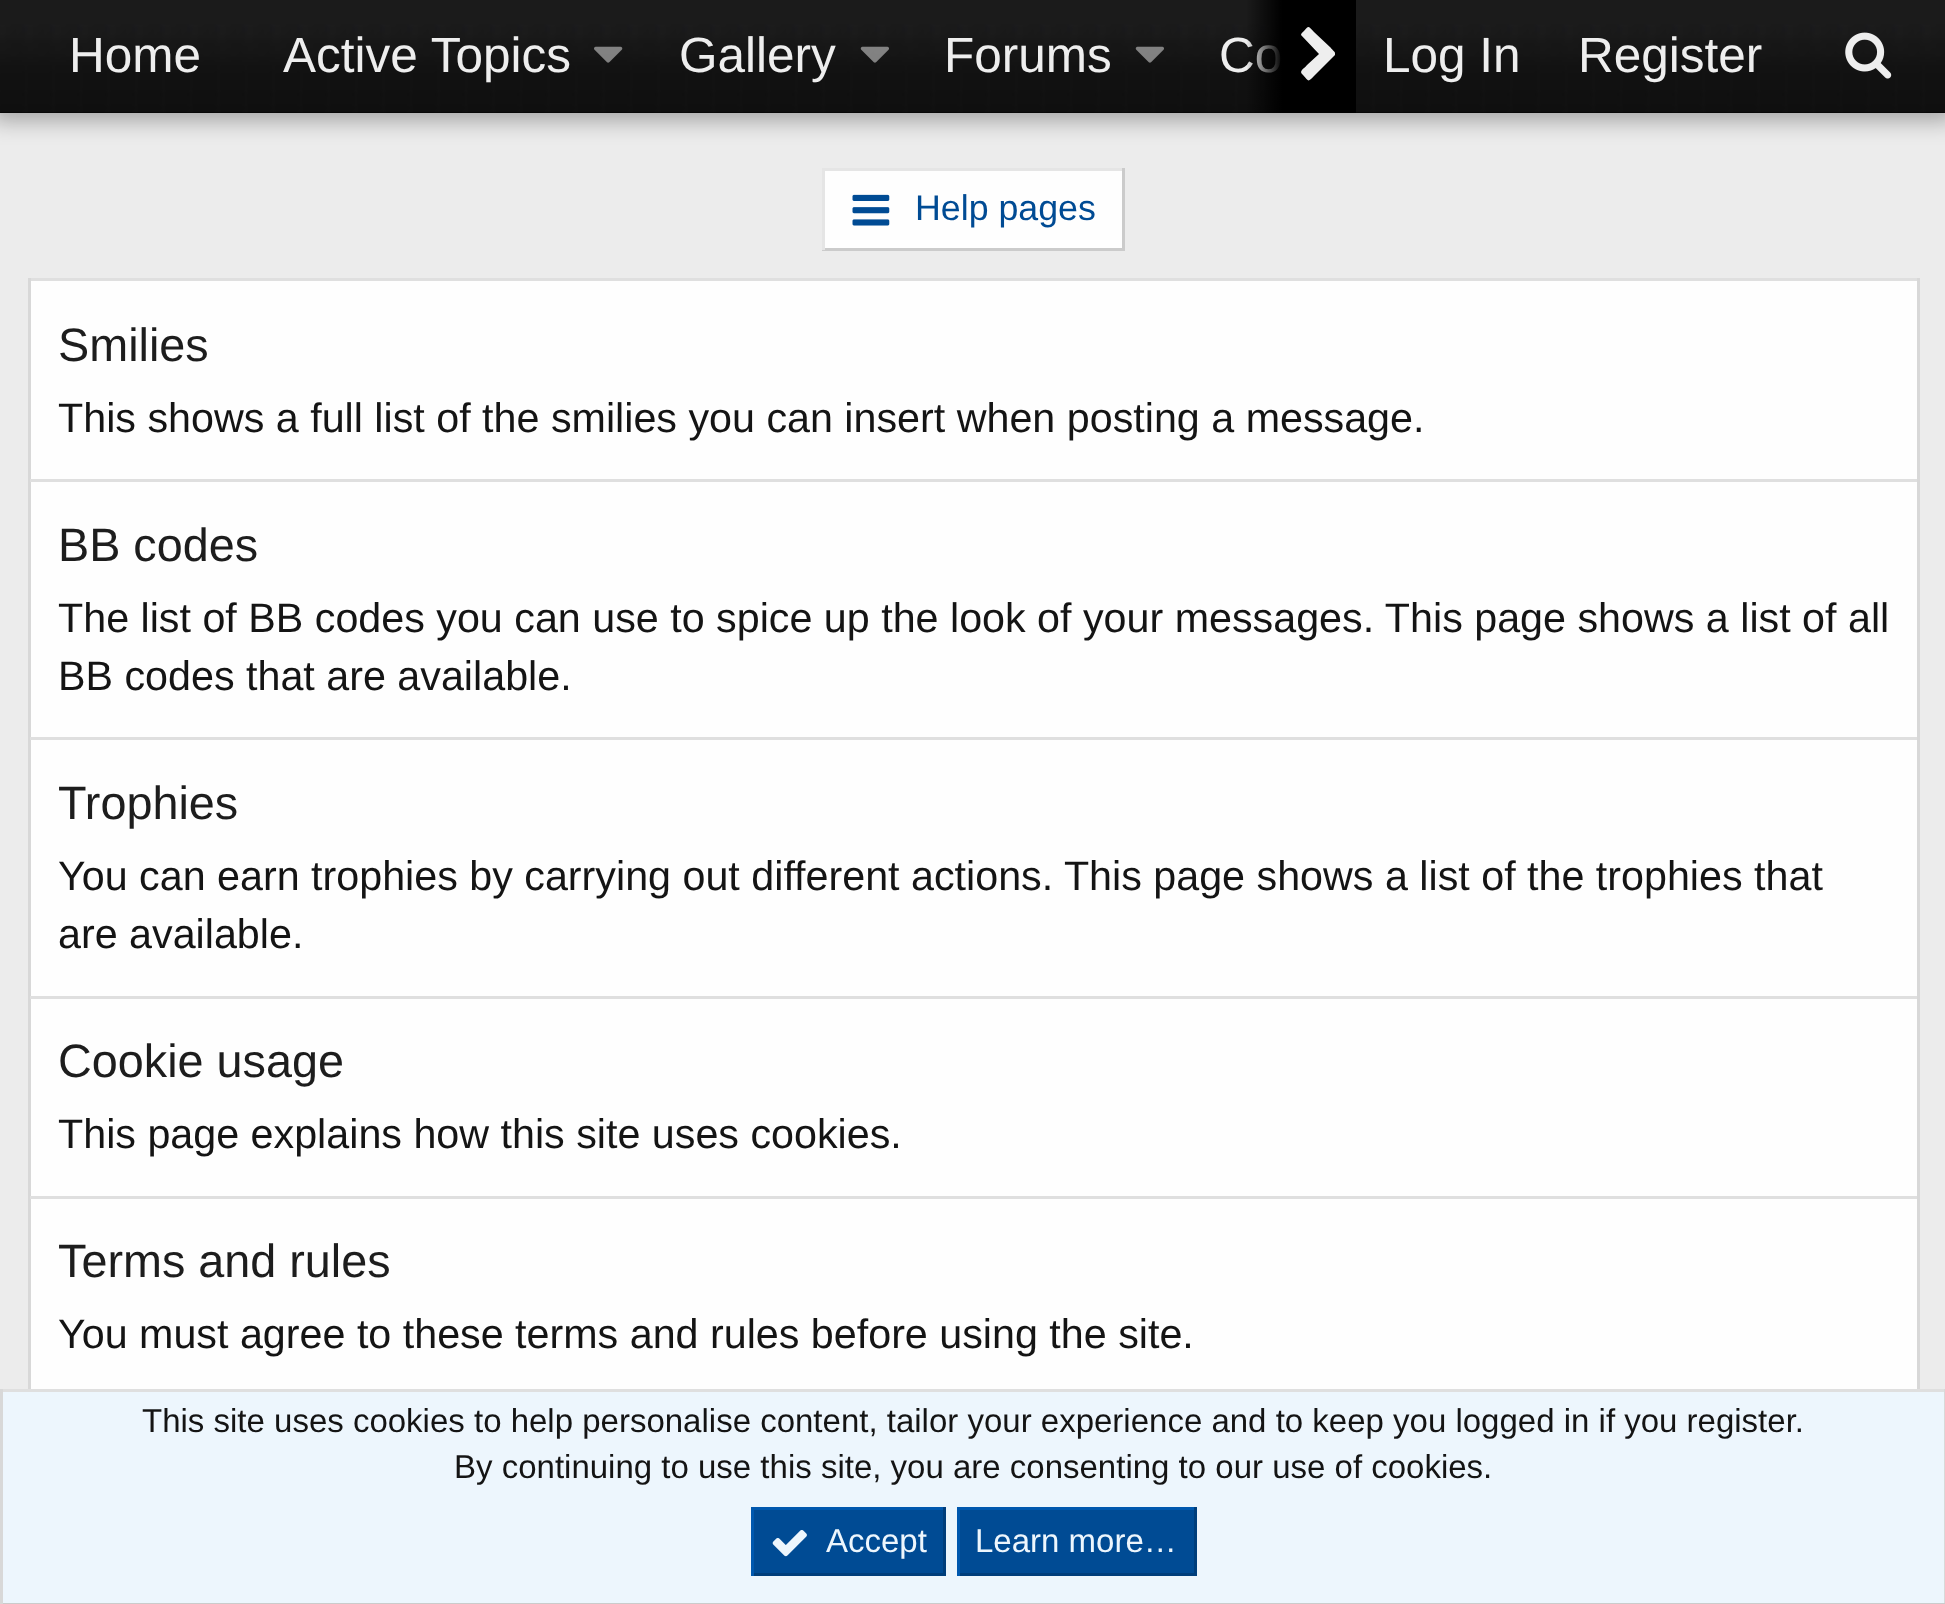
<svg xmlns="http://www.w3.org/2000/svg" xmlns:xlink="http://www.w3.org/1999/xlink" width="1945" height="1604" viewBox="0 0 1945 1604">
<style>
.cls-1{font:49.5px Liberation Sans;fill:#eeeeee}
.cls-2{font:35.75px Liberation Sans;fill:#004b94}
.cls-3{font:46.75px Liberation Sans;fill:#1d1d1d}
.cls-4{font:41.25px Liberation Sans;fill:#141414}
.cls-5{font:33px Liberation Sans;fill:#141414}
.cls-6{font:33px Liberation Sans;fill:#edf6fd}
</style>
<defs>
<linearGradient id="g1" gradientUnits="userSpaceOnUse" x1="1246" y1="56" x2="1356" y2="56"><stop offset="0" stop-color="#000000" stop-opacity="0"/><stop offset="0.33" stop-color="#000000"/></linearGradient>
</defs>
<rect width="100%" height="100%" fill="#ececec"/>
<rect fill="#000000" fill-opacity="0.3" filter="blur(11px)" x="-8" y="-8" width="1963" height="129"/>
<rect fill="#000000" x="0" y="111" width="1945" height="2"/>
<image xlink:href="image0.png" x="0" y="0" width="1945" height="113"/>
<image xlink:href="image1.png" x="594" y="46" width="29" height="17"/>
<image xlink:href="image2.png" x="860" y="46" width="29" height="17"/>
<image xlink:href="image2.png" x="1135" y="46" width="29" height="17"/>
<image xlink:href="image3.png" x="1845" y="32" width="47" height="47"/>
<rect fill="#fefefe" x="825" y="171" width="297" height="77"/>
<rect fill="#e5e5e5" x="822" y="168" width="303" height="3"/>
<rect fill="#cbcbcb" x="1122" y="168" width="3" height="82"/>
<rect fill="#cbcbcb" x="822" y="248" width="303" height="3"/>
<rect fill="#e5e5e5" x="822" y="168" width="3" height="82"/>
<image xlink:href="image4.png" x="852" y="194" width="38" height="32"/>
<rect fill="#fefefe" x="31" y="281" width="1886" height="1108"/>
<rect fill="#dfdfdf" x="28" y="278" width="1892" height="3"/>
<rect fill="#d8d8d8" x="1917" y="278" width="3" height="1111"/>
<rect fill="#d8d8d8" x="28" y="278" width="3" height="1111"/>
<rect fill="#dfdfdf" x="30" y="479" width="1887" height="3"/>
<rect fill="#dfdfdf" x="30" y="737" width="1887" height="3"/>
<rect fill="#dfdfdf" x="30" y="996" width="1887" height="3"/>
<rect fill="#dfdfdf" x="30" y="1196" width="1887" height="3"/>
<rect fill="#edf6fd" x="3" y="1392" width="1941" height="211"/>
<rect fill="#dfdfdf" x="0" y="1389" width="1945" height="3"/>
<rect fill="#d8d8d8" x="1944" y="1389" width="1" height="215"/>
<rect fill="#cbcbcb" x="0" y="1603" width="1945" height="1"/>
<rect fill="#d8d8d8" x="0" y="1389" width="3" height="215"/>
<rect fill="#004b94" x="754" y="1510" width="189" height="63"/>
<rect fill="#0058ae" x="751" y="1507" width="195" height="3"/>
<rect fill="#003e7b" x="943" y="1507" width="3" height="69"/>
<rect fill="#003e7b" x="751" y="1573" width="195" height="3"/>
<rect fill="#0058ae" x="751" y="1507" width="3" height="69"/>
<image xlink:href="image5.png" x="772" y="1530" width="35" height="27"/>
<rect fill="#004b94" x="960" y="1510" width="234" height="63"/>
<rect fill="#0058ae" x="957" y="1507" width="239" height="3"/>
<rect fill="#003e7b" x="1194" y="1507" width="3" height="69"/>
<rect fill="#003e7b" x="957" y="1573" width="239" height="3"/>
<rect fill="#0058ae" x="957" y="1507" width="3" height="69"/>
<text class="cls-1" x="69" y="72">Home</text>
<text class="cls-1" x="283" y="72">Active Topics</text>
<text class="cls-1" x="679" y="72">Gallery</text>
<text class="cls-1" x="944" y="72">Forums</text>
<text class="cls-1" x="1219" y="72">Co</text>
<rect fill="url(#g1)" x="1247" y="0" width="109" height="113"/>
<path fill="#eeeeee" d="M1335 55L1314 76C1308 82 1309 82 1303 75C1298 71 1304 69 1307 65L1319 54L1301 35C1301 33 1303 32 1304 31C1309 25 1308 26 1314 32L1331 48C1331 49 1336 52 1335 54Z"/>
<text class="cls-1" x="1383" y="72">Log In</text>
<text class="cls-1" x="1578" y="72">Register</text>
<text class="cls-2" x="915" y="220">Help pages</text>
<text class="cls-3" x="58" y="361">Smilies</text>
<text class="cls-4" x="58" y="432">This shows a full list of the smilies you can insert when posting a message.</text>
<text class="cls-3" x="58" y="561">BB codes</text>
<text class="cls-4"><tspan x="58" y="632">The list of BB codes you can use to spice up the look of your messages. This page shows a list of all</tspan><tspan x="58" y="690">BB codes that are available.</tspan></text>
<text class="cls-3" x="58" y="819">Trophies</text>
<text class="cls-4"><tspan x="58" y="890">You can earn trophies by carrying out different actions. This page shows a list of the trophies that</tspan><tspan x="58" y="948">are available.</tspan></text>
<text class="cls-3" x="58" y="1077">Cookie usage</text>
<text class="cls-4" x="58" y="1148">This page explains how this site uses cookies.</text>
<text class="cls-3" x="58" y="1277">Terms and rules</text>
<text class="cls-4" x="58" y="1348">You must agree to these terms and rules before using the site.</text>
<text class="cls-5" x="142" y="1432">This site uses cookies to help personalise content, tailor your experience and to keep you logged in if you register.</text>
<text class="cls-5" x="454" y="1478">By continuing to use this site, you are consenting to our use of cookies.</text>
<text class="cls-6" x="826" y="1552">Accept</text>
<text class="cls-6" x="975" y="1552">Learn more…</text>
</svg>
